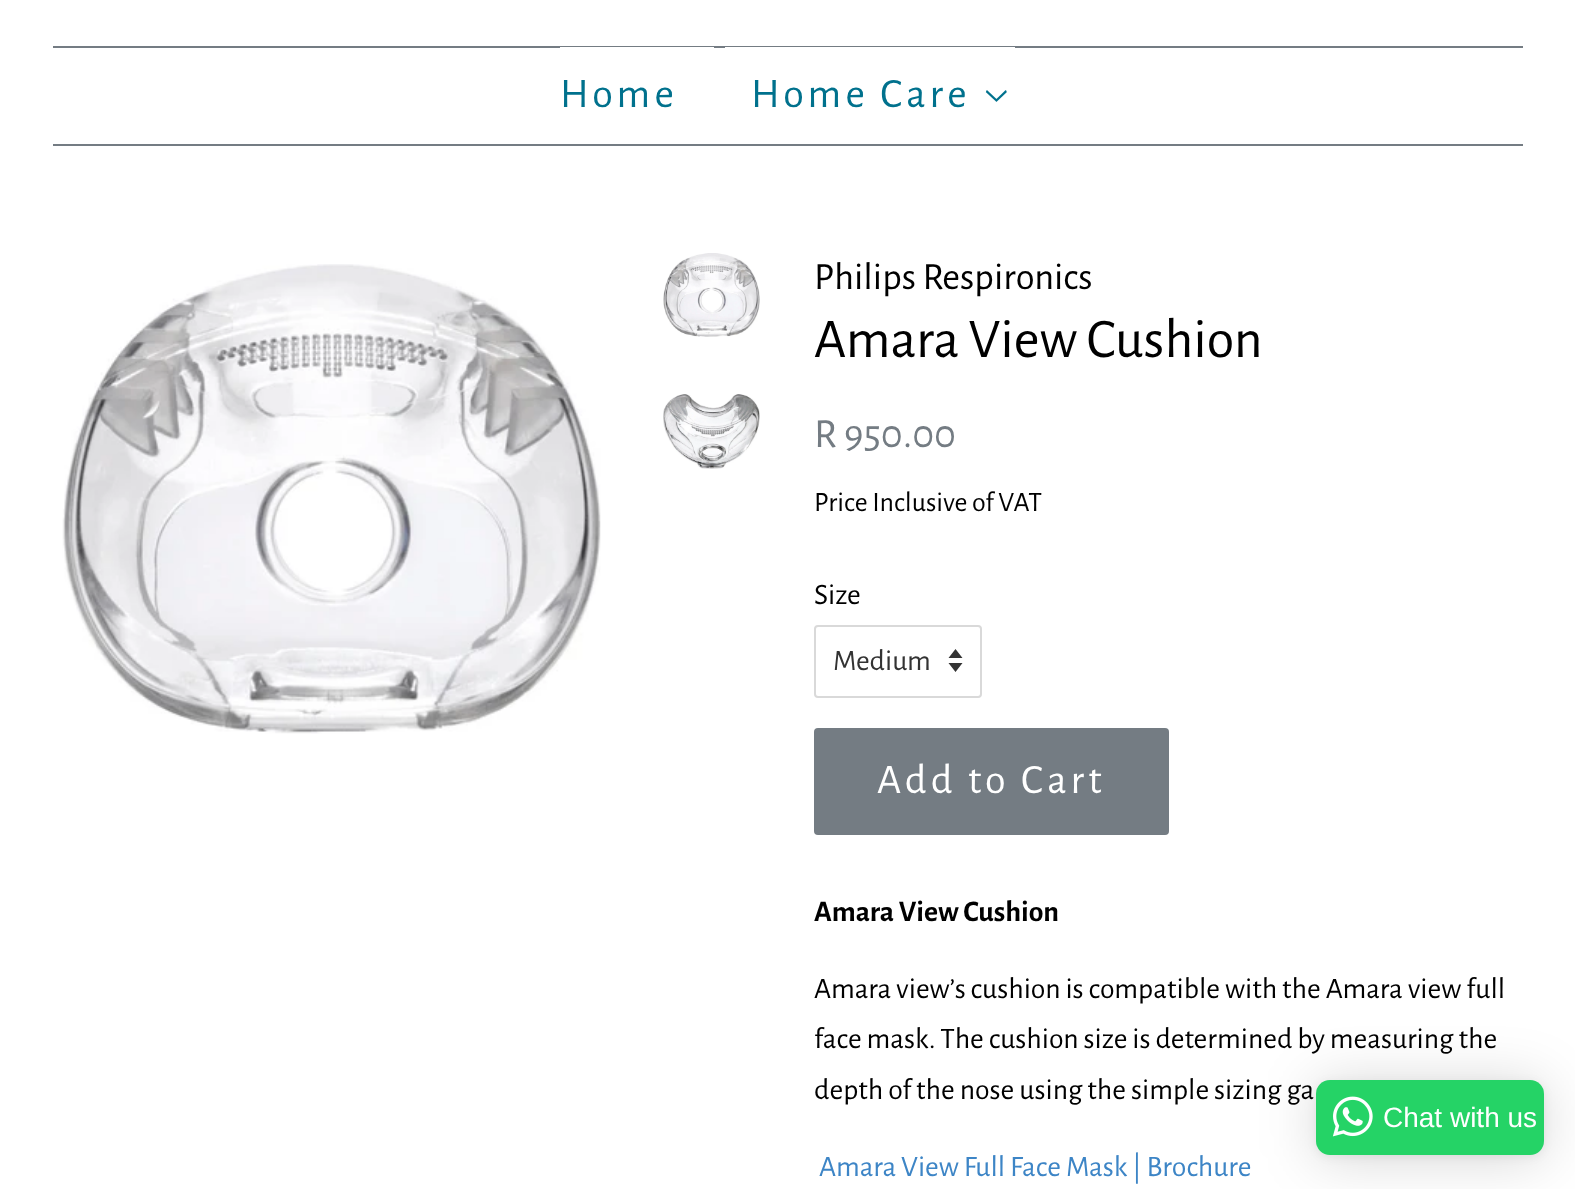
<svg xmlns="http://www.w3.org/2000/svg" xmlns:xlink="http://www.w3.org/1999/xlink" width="1575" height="1189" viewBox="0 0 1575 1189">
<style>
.cls-1{font:42px Alegreya Sans;letter-spacing:4.25px;fill:#00718d}
.cls-2{font:38.5px Alegreya Sans;fill:#000000}
.cls-3{font:56px Alegreya Sans;fill:#000000}
.cls-4{font:41.5px Alegreya Sans;fill:#747c83}
.cls-5{font:28px Alegreya Sans;fill:#000000}
.cls-6{font:29.75px Alegreya Sans;fill:#000000}
.cls-7{font:29.75px Alegreya Sans;fill:#333333}
.cls-8{font:42px Alegreya Sans;letter-spacing:4.25px;fill:#ffffff}
.cls-9{font:bold 29.75px Alegreya Sans;fill:#000000}
.cls-10{font:29.75px Alegreya Sans;fill:#3d85c6}
.cls-11{font:28px Liberation Sans;fill:#ffffff}
</style>
<rect width="100%" height="100%" fill="#ffffff"/>
<rect fill="#747c83" x="53" y="46" width="1470" height="2"/>
<rect fill="#747c83" x="53" y="144" width="1470" height="2"/>
<rect fill="#ffffff" x="560" y="47" width="154" height="1"/>
<rect fill="#ffffff" x="725" y="47" width="290" height="1"/>
<image xlink:href="image0.png" x="985" y="90" width="22" height="12"/>
<image xlink:href="image1.png" x="62" y="264" width="539" height="470"/>
<image xlink:href="image2.png" x="663" y="253" width="97" height="84"/>
<image xlink:href="image3.png" x="663" y="394" width="97" height="75"/>
<path fill="#333333" d="M948.5 663L955.5 672L962.5 663ZM955.5 649L948.5 658H962.5Z"/>
<rect fill="none" stroke="#d9d9d9" stroke-width="2" x="815" y="626" width="166" height="71" rx="3"/>
<rect fill="#747c83" x="814" y="728" width="355" height="107" rx="4"/>
<rect fill="#000000" fill-opacity="0.16" filter="blur(28px)" x="1316" y="1083" width="228" height="76" rx="14"/>
<rect fill="#000000" fill-opacity="0.06" filter="blur(5px)" x="1316" y="1082" width="228" height="75" rx="14"/>
<rect fill="#25d366" x="1316" y="1080" width="228" height="75" rx="14"/>
<image xlink:href="image4.png" x="1332" y="1096" width="41" height="41"/>
<text class="cls-1" x="560" y="107">Home</text>
<text class="cls-1" x="751" y="107">Home Care</text>
<text class="cls-2" x="814" y="289">Philips Respironics</text>
<text class="cls-3" x="814" y="357">Amara View Cushion</text>
<text class="cls-4" x="814" y="447">R 950.00</text>
<text class="cls-5" x="814" y="511">Price Inclusive of VAT</text>
<text class="cls-6" x="814" y="604">Size</text>
<text class="cls-7" x="833" y="670">Medium</text>
<text class="cls-8" x="877" y="793">Add to Cart</text>
<text class="cls-9" x="814" y="921">Amara View Cushion</text>
<text class="cls-6"><tspan x="814" y="998">Amara view’s cushion is compatible with the Amara view full</tspan><tspan x="814" y="1048">face mask. The cushion size is determined by measuring the</tspan><tspan x="814" y="1099">depth of the nose using the simple sizing ga</tspan></text>
<text class="cls-10" x="819" y="1176">Amara View Full Face Mask | Brochure</text>
<text class="cls-11" x="1383" y="1127">Chat with us</text>
</svg>
